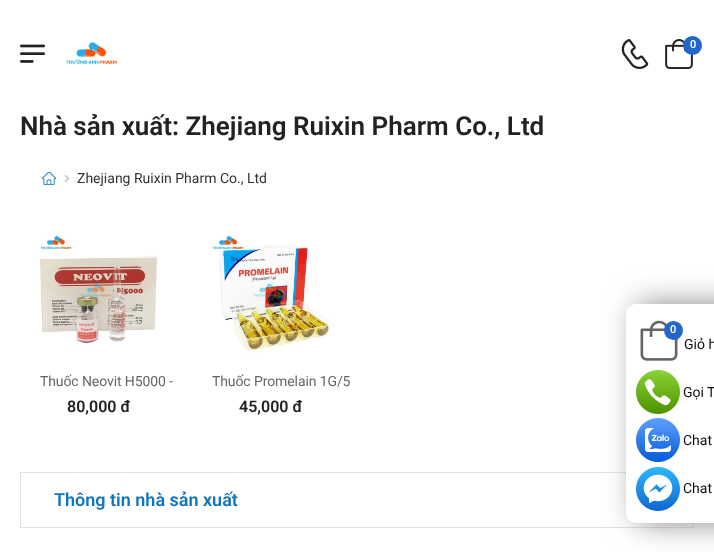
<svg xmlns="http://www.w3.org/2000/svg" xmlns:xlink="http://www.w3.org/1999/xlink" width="714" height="552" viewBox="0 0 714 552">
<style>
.cls-1{font:600 11px Roboto;fill:#ffffff}
.cls-2{font:600 26px Roboto;fill:#222222}
.cls-3{font:14px Roboto;fill:#333333}
.cls-4{font:14px Roboto;letter-spacing:-0.1px;fill:#666666}
.cls-5{font:600 16px Roboto;fill:#222222}
.cls-6{font:600 18px Roboto;fill:#0f75bc}
.cls-7{font:14px Roboto;fill:#111111}
</style>
<rect width="100%" height="100%" fill="#ffffff"/>
<image xlink:href="image0.png" x="20" y="44" width="25" height="19"/>
<image xlink:href="image1.png" x="66" y="42" width="52" height="22"/>
<image xlink:href="image2.png" x="621" y="39" width="28" height="30"/>
<image xlink:href="image3.png" x="665" y="39" width="28" height="30"/>
<circle fill="#2266cc" cx="692.5" cy="45.5" r="9.5"/>
<image xlink:href="image4.png" x="42" y="171" width="14" height="14"/>
<image xlink:href="image5.png" x="64" y="174" width="6" height="9"/>
<image xlink:href="image6.png" x="35" y="228" width="127" height="128"/>
<image xlink:href="image7.png" x="207" y="228" width="128" height="128"/>
<rect fill="none" stroke="#e1e1e1" x="20.5" y="472.5" width="673" height="55"/>
<rect fill="#888888" filter="blur(15px)" x="636" y="304" width="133" height="219" rx="10"/>
<path fill="#ffffff" d="M636 304H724V523H636C630.5 523 626 518.5 626 513V314C626 308.5 630.5 304 636 304Z"/>
<image xlink:href="image8.png" x="640" y="320" width="38" height="41"/>
<circle fill="#2266cc" cx="673.5" cy="330.5" r="9.5"/>
<image xlink:href="image9.png" x="636" y="370" width="44" height="44"/>
<image xlink:href="image10.png" x="636" y="418" width="44" height="44"/>
<image xlink:href="image11.png" x="636" y="467" width="44" height="44"/>
<text class="cls-1" x="690" y="48">0</text>
<text class="cls-2" x="20" y="135">Nhà sản xuất: Zhejiang Ruixin Pharm Co., Ltd</text>
<text class="cls-3" x="77" y="183">Zhejiang Ruixin Pharm Co., Ltd</text>
<text class="cls-4" x="40" y="386">Thuốc Neovit H5000 -</text>
<text class="cls-5" x="67" y="412">80,000 đ</text>
<text class="cls-4" x="212" y="386">Thuốc Promelain 1G/5</text>
<text class="cls-5" x="239" y="412">45,000 đ</text>
<text class="cls-6" x="54" y="506">Thông tin nhà sản xuất</text>
<text class="cls-1" x="670" y="333">0</text>
<text class="cls-7" x="684" y="349">Giỏ h</text>
<text class="cls-7" x="683" y="397">Gọi T</text>
<text class="cls-7" x="683" y="445">Chat</text>
<text class="cls-7" x="683" y="493">Chat</text>
</svg>
